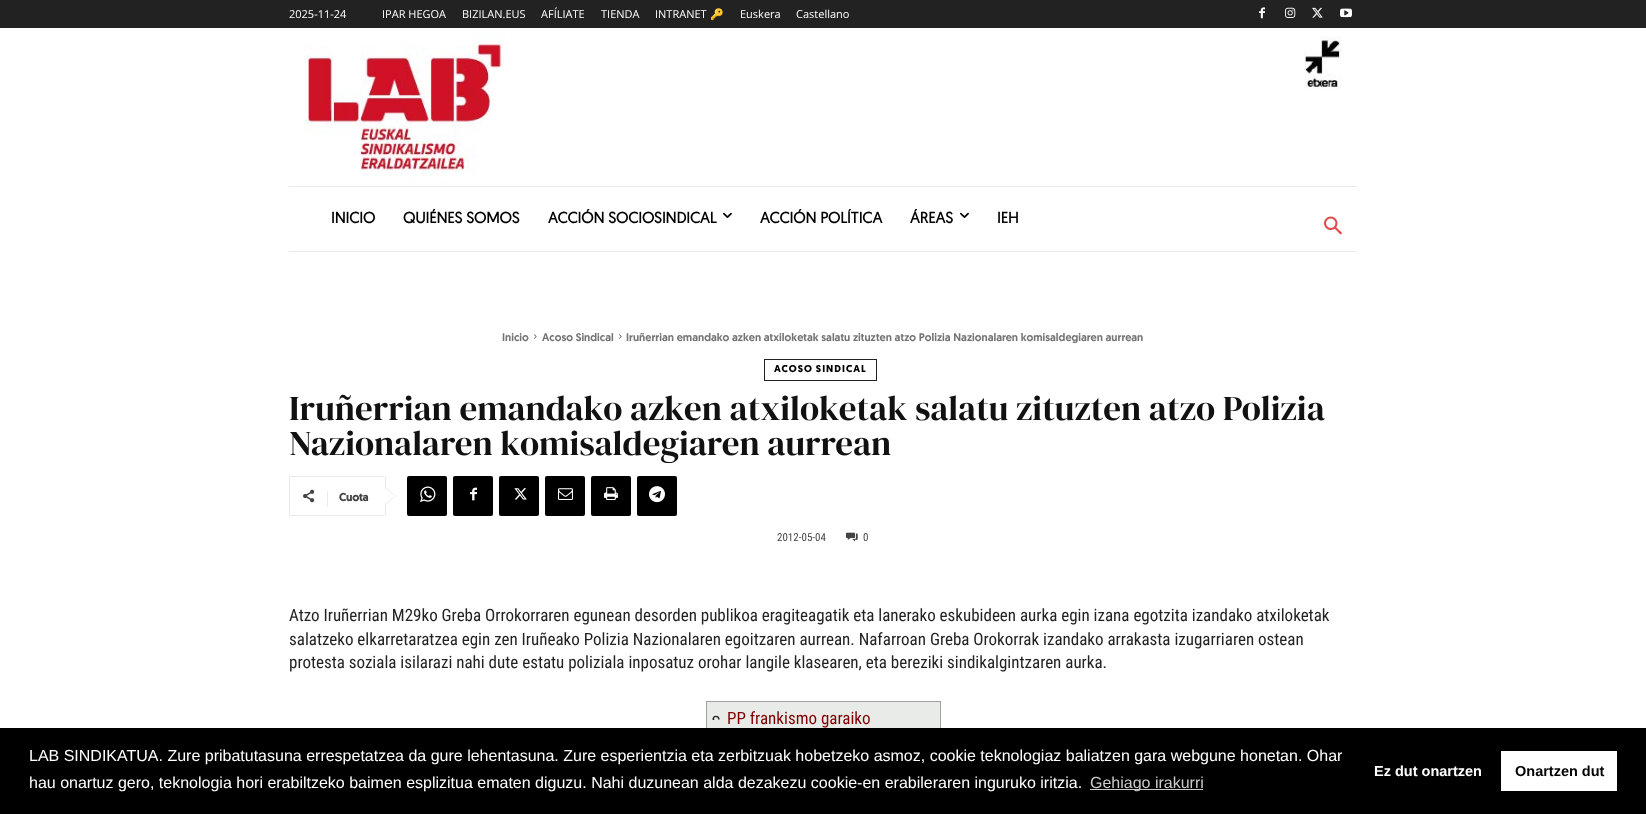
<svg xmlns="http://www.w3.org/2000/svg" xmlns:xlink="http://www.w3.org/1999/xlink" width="1646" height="814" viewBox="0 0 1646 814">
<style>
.cls-1{font:11px Open Sans;fill:#ffffff}
.cls-2{font:11px Noto Color Emoji;fill:#ffffff}
.cls-3{font:bold 15.4px 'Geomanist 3';fill:#000000}
.cls-4{font:500 11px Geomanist;fill:#747474}
.cls-5{font:bold 10px Geomanist;letter-spacing:1px;fill:#000000}
.cls-6{font:35px DM Serif Display;fill:#111111}
.cls-7{font:bold 11px 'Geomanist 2';fill:#444444}
.cls-8{font:11px Roboto Condensed;fill:#444444}
.cls-9{font:17px Roboto Condensed;fill:#222222}
.cls-10{font:17px Roboto Condensed;fill:#800000}
.cls-11{font:16px Liberation Sans;fill:#ffffff}
.cls-12{font:16px Liberation Sans;fill:#cccccc}
.cls-13{font:bold 14.5px Liberation Sans;fill:#ffffff}
.cls-14{font:bold 14.5px Liberation Sans;fill:#000000}
</style>
<rect width="100%" height="100%" fill="#ffffff"/>
<rect fill="#222222" x="0" y="0" width="1646" height="28"/>
<image xlink:href="image0.png" x="1259" y="7" width="6" height="12"/>
<image xlink:href="image1.png" x="1285" y="7" width="11" height="11"/>
<image xlink:href="image2.png" x="1312" y="7" width="11" height="11"/>
<image xlink:href="image3.png" x="1340" y="8" width="12" height="10"/>
<image xlink:href="image4.png" x="303" y="32" width="202" height="145"/>
<image xlink:href="image5.png" x="1304" y="36" width="38" height="53"/>
<rect fill="#ebebeb" x="289" y="186" width="1068" height="1"/>
<image xlink:href="image6.png" x="723" y="212" width="9" height="6"/>
<image xlink:href="image6.png" x="960" y="212" width="9" height="6"/>
<image xlink:href="image7.png" x="1324" y="216" width="18" height="19"/>
<rect fill="#ebebeb" x="289" y="251" width="1068" height="1"/>
<image xlink:href="image8.png" x="534" y="334" width="3" height="5"/>
<image xlink:href="image8.png" x="619" y="334" width="3" height="5"/>
<rect fill="none" stroke="#222222" x="764.5" y="359.5" width="112" height="21"/>
<rect fill="none" stroke="#e9e9e9" x="289.5" y="476.5" width="96" height="39" rx="1.5"/>
<path fill="#e9e9e9" d="M385 505V487L396 496Z"/>
<image xlink:href="image9.png" x="303" y="489" width="12" height="14"/>
<rect fill="#ebebeb" x="327" y="491" width="1" height="16"/>
<path fill="#ffffff" d="M385 504V488L395 496Z"/>
<rect fill="#000000" x="407" y="476" width="40" height="40" rx="2"/>
<image xlink:href="image10.png" x="420" y="486" width="16" height="16"/>
<rect fill="#000000" x="453" y="476" width="40" height="40" rx="2"/>
<image xlink:href="image11.png" x="470" y="487" width="7" height="14"/>
<rect fill="#000000" x="499" y="476" width="40" height="40" rx="2"/>
<image xlink:href="image12.png" x="514" y="488" width="13" height="12"/>
<rect fill="#000000" x="545" y="476" width="40" height="40" rx="2"/>
<image xlink:href="image13.png" x="558" y="488" width="15" height="12"/>
<rect fill="#000000" x="591" y="476" width="40" height="40" rx="2"/>
<image xlink:href="image14.png" x="604" y="487" width="14" height="13"/>
<rect fill="#000000" x="637" y="476" width="40" height="40" rx="2"/>
<image xlink:href="image15.png" x="649" y="486" width="16" height="17"/>
<image xlink:href="image16.png" x="846" y="532" width="12" height="10"/>
<rect fill="#e9ebe9" x="707" y="702" width="233" height="26"/>
<rect fill="none" stroke="#a2a0a0" x="706.5" y="701.5" width="234" height="106"/>
<image xlink:href="image17.png" x="712" y="715" width="8" height="5"/>
<rect fill="#000000" x="0" y="728" width="1646" height="86"/>
<rect fill="#cccccc" x="1090" y="789" width="113" height="1"/>
<rect fill="#ffffff" x="1501" y="751" width="116" height="40"/>
<text class="cls-1" x="289" y="18">2025-11-24</text>
<text class="cls-1" x="382" y="18">IPAR HEGOA</text>
<text class="cls-1" x="462" y="18">BIZILAN.EUS</text>
<text class="cls-1" x="541" y="18">AFÍLIATE</text>
<text class="cls-1" x="601" y="18">TIENDA</text>
<text class="cls-1" x="655" y="18">INTRANET</text>
<text class="cls-2" x="710" y="18">🔑</text>
<text class="cls-1" x="740" y="18">Euskera</text>
<text class="cls-1" x="796" y="18">Castellano</text>
<text class="cls-3" x="331" y="223">INICIO</text>
<text class="cls-3" x="403" y="223">QUIÉNES SOMOS</text>
<text class="cls-3" x="548" y="223">ACCIÓN SOCIOSINDICAL</text>
<text class="cls-3" x="760" y="223">ACCIÓN POLÍTICA</text>
<text class="cls-3" x="910" y="223">ÁREAS</text>
<text class="cls-3" x="997" y="223">IEH</text>
<text class="cls-4" x="502" y="341">Inicio</text>
<text class="cls-4" x="542" y="341">Acoso Sindical</text>
<text class="cls-4" x="626" y="341">Iruñerrian emandako azken atxiloketak salatu zituzten atzo Polizia Nazionalaren komisaldegiaren aurrean</text>
<text class="cls-5" x="774" y="372">ACOSO SINDICAL</text>
<text class="cls-6"><tspan x="289" y="420">Iruñerrian emandako azken atxiloketak salatu zituzten atzo Polizia</tspan><tspan x="289" y="455">Nazionalaren komisaldegiaren aurrean</tspan></text>
<text class="cls-7" x="339" y="501">Cuota</text>
<text class="cls-8" x="777" y="541">2012-05-04</text>
<text class="cls-8" x="863" y="541">0</text>
<text class="cls-9"><tspan x="289" y="621">Atzo Iruñerrian M29ko Greba Orrokorraren egunean desorden publikoa eragiteagatik eta lanerako eskubideen aurka egin izana egotzita izandako atxiloketak</tspan><tspan x="289" y="645">salatzeko elkarretaratzea egin zen Iruñeako Polizia Nazionalaren egoitzaren aurrean. Nafarroan Greba Orokorrak izandako arrakasta izugarriaren ostean</tspan><tspan x="289" y="668">protesta soziala isilarazi nahi dute estatu poliziala inposatuz orohar langile klasearen, eta bereziki sindikalgintzaren aurka.</tspan></text>
<text class="cls-10" x="727" y="724">PP frankismo garaiko</text>
<text class="cls-11"><tspan x="29" y="761">LAB SINDIKATUA. Zure pribatutasuna errespetatzea da gure lehentasuna. Zure esperientzia eta zerbitzuak hobetzeko asmoz, cookie teknologiaz baliatzen gara webgune honetan. Ohar</tspan><tspan x="29" y="788">hau onartuz gero, teknologia hori erabiltzeko baimen esplizitua ematen diguzu. Nahi duzunean alda dezakezu cookie-en erabileraren inguruko iritzia.</tspan></text>
<text class="cls-12" x="1090" y="788">Gehiago irakurri</text>
<text class="cls-13" x="1374" y="776">Ez dut onartzen</text>
<text class="cls-14" x="1515" y="776">Onartzen dut</text>
</svg>
